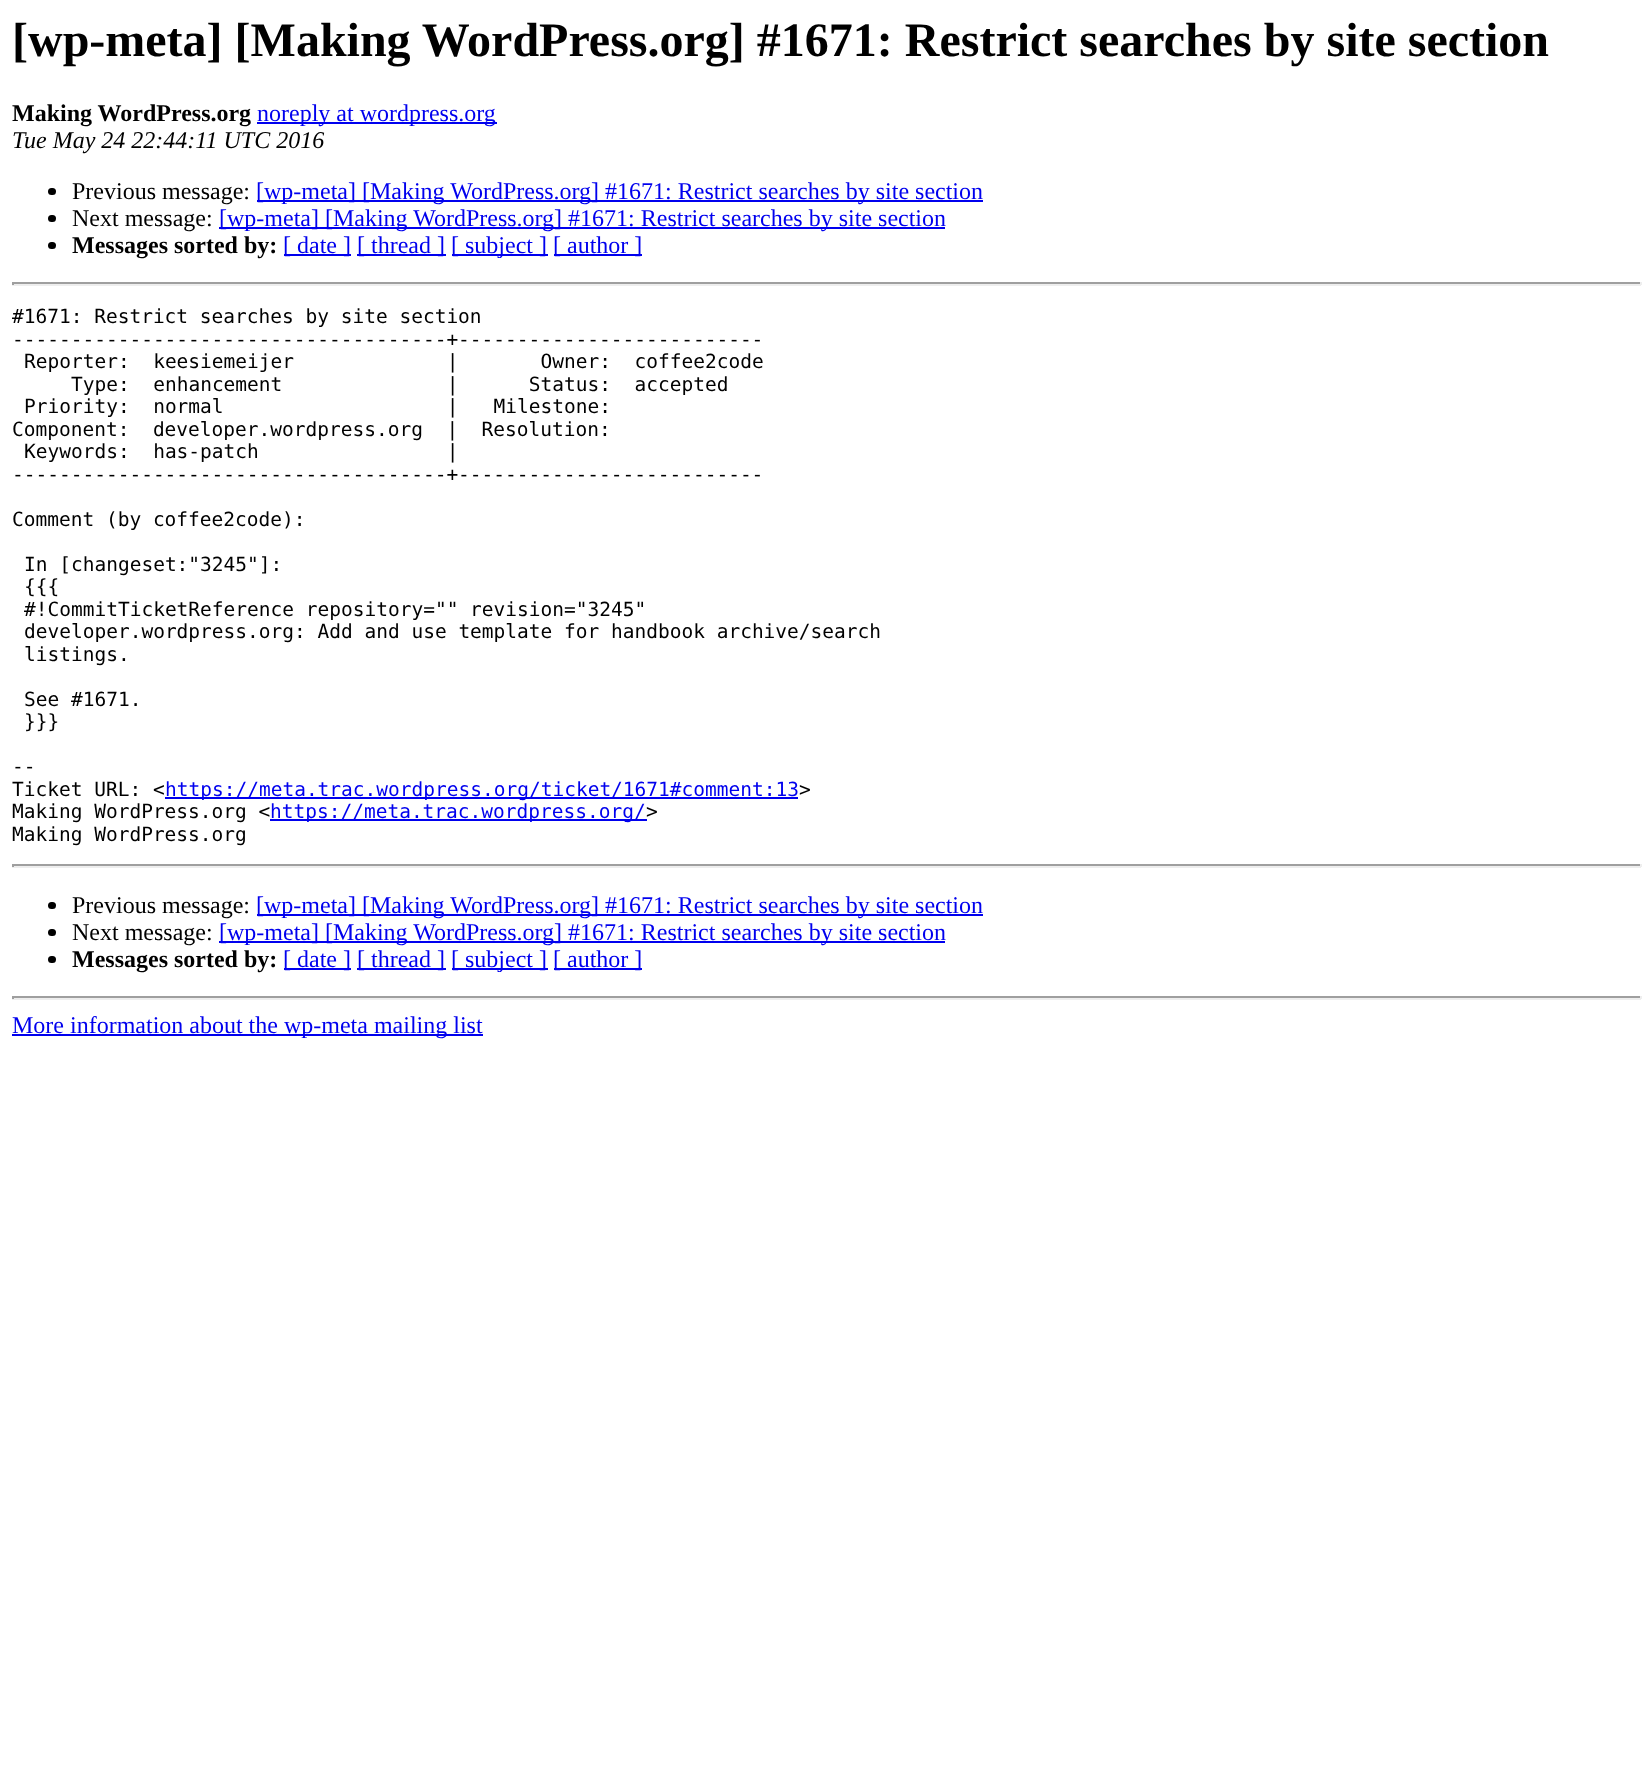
<svg xmlns="http://www.w3.org/2000/svg" xmlns:xlink="http://www.w3.org/1999/xlink" width="1652" height="1792" viewBox="0 0 1652 1792">
<style>
.cls-1{font:bold 48px Liberation Serif;fill:#000000}
.cls-2{font:bold 24px Liberation Serif;fill:#000000}
.cls-3{font:24px Liberation Serif;fill:#0000ee}
.cls-4{font:italic 24px Liberation Serif;fill:#000000}
.cls-5{font:24px Liberation Serif;fill:#000000}
.cls-6{font:19.5px DejaVu Sans Mono;fill:#000000}
.cls-7{font:19.5px DejaVu Sans Mono;fill:#0000ee}
</style>
<rect width="100%" height="100%" fill="#ffffff"/>
<rect fill="#0000ee" x="257" y="122" width="240" height="2"/>
<rect fill="#000000" x="48" y="188" width="8" height="7" rx="3.5"/>
<rect fill="#0000ee" x="257" y="200" width="726" height="2"/>
<rect fill="#000000" x="48" y="215" width="8" height="7" rx="3.5"/>
<rect fill="#0000ee" x="219" y="227" width="726" height="2"/>
<rect fill="#000000" x="48" y="242" width="8" height="7" rx="3.5"/>
<rect fill="#0000ee" x="284" y="254" width="67" height="2"/>
<rect fill="#0000ee" x="357" y="254" width="89" height="2"/>
<rect fill="#0000ee" x="452" y="254" width="96" height="2"/>
<rect fill="#0000ee" x="554" y="254" width="88" height="2"/>
<rect fill="#9f9f9f" x="12" y="282" width="1629" height="2"/>
<rect fill="#eeeeee" x="1640" y="282" width="2" height="3"/>
<rect fill="#eeeeee" x="12" y="284" width="1629" height="2"/>
<rect fill="#9f9f9f" x="12" y="282" width="2" height="3"/>
<rect fill="#0000ee" x="165" y="797" width="633" height="2"/>
<rect fill="#0000ee" x="270" y="819" width="377" height="2"/>
<rect fill="#9f9f9f" x="12" y="864" width="1629" height="2"/>
<rect fill="#eeeeee" x="1640" y="864" width="2" height="3"/>
<rect fill="#eeeeee" x="12" y="866" width="1629" height="2"/>
<rect fill="#9f9f9f" x="12" y="864" width="2" height="3"/>
<rect fill="#000000" x="48" y="902" width="8" height="7" rx="3.5"/>
<rect fill="#0000ee" x="257" y="914" width="726" height="2"/>
<rect fill="#000000" x="48" y="929" width="8" height="7" rx="3.5"/>
<rect fill="#0000ee" x="219" y="941" width="726" height="2"/>
<rect fill="#000000" x="48" y="956" width="8" height="7" rx="3.5"/>
<rect fill="#0000ee" x="284" y="968" width="67" height="2"/>
<rect fill="#0000ee" x="357" y="968" width="89" height="2"/>
<rect fill="#0000ee" x="452" y="968" width="96" height="2"/>
<rect fill="#0000ee" x="554" y="968" width="88" height="2"/>
<rect fill="#9f9f9f" x="12" y="996" width="1629" height="2"/>
<rect fill="#eeeeee" x="1640" y="996" width="2" height="3"/>
<rect fill="#eeeeee" x="12" y="998" width="1629" height="2"/>
<rect fill="#9f9f9f" x="12" y="996" width="2" height="3"/>
<rect fill="#0000ee" x="12" y="1034" width="471" height="2"/>
<text class="cls-1" x="12" y="56">[wp-meta] [Making WordPress.org] #1671: Restrict searches by site section</text>
<text class="cls-2" x="12" y="121">Making WordPress.org</text>
<text class="cls-3" x="257" y="121">noreply at wordpress.org</text>
<text class="cls-4" x="12" y="148">Tue May 24 22:44:11 UTC 2016</text>
<text class="cls-5" x="72" y="199">Previous message:</text>
<text class="cls-3" x="256" y="199">[wp-meta] [Making WordPress.org] #1671: Restrict searches by site section</text>
<text class="cls-5" x="72" y="226">Next message:</text>
<text class="cls-3" x="219" y="226">[wp-meta] [Making WordPress.org] #1671: Restrict searches by site section</text>
<text class="cls-2" x="72" y="253">Messages sorted by:</text>
<text class="cls-3" x="283" y="253">[ date ]</text>
<text class="cls-3" x="357" y="253">[ thread ]</text>
<text class="cls-3" x="451" y="253">[ subject ]</text>
<text class="cls-3" x="553" y="253">[ author ]</text>
<text class="cls-6"><tspan x="12" y="323">#1671: Restrict searches by site section</tspan><tspan x="12" y="346">-------------------------------------+--------------------------</tspan></text>
<text class="cls-6" xml:space="preserve" x="24" y="368">Reporter:  keesiemeijer             |       Owner:  coffee2code</text>
<text class="cls-6" xml:space="preserve" x="71" y="391">Type:  enhancement              |      Status:  accepted</text>
<text class="cls-6" xml:space="preserve" x="24" y="413">Priority:  normal                   |   Milestone:</text>
<text class="cls-6" xml:space="preserve" x="12" y="436">Component:  developer.wordpress.org  |  Resolution:</text>
<text class="cls-6" xml:space="preserve" x="24" y="458">Keywords:  has-patch                |</text>
<text class="cls-6" x="12" y="481">-------------------------------------+--------------------------</text>
<text class="cls-6" x="12" y="526">Comment (by coffee2code):</text>
<text class="cls-6"><tspan x="24" y="571">In [changeset:"3245"]:</tspan><tspan x="24" y="593">{{{</tspan><tspan x="24" y="616">#!CommitTicketReference repository="" revision="3245"</tspan><tspan x="24" y="638">developer.wordpress.org: Add and use template for handbook archive/search</tspan><tspan x="24" y="661">listings.</tspan></text>
<text class="cls-6"><tspan x="24" y="706">See #1671.</tspan><tspan x="24" y="728">}}}</tspan></text>
<text class="cls-6"><tspan x="12" y="773">--</tspan><tspan x="12" y="796">Ticket URL: &lt;</tspan></text>
<text class="cls-7" x="165" y="796">https://meta.trac.wordpress.org/ticket/1671#comment:13</text>
<text class="cls-6" x="799" y="796">&gt;</text>
<text class="cls-6" x="12" y="818">Making WordPress.org &lt;</text>
<text class="cls-7" x="270" y="818">https://meta.trac.wordpress.org/</text>
<text class="cls-6" x="646" y="818">&gt;</text>
<text class="cls-6" x="12" y="841">Making WordPress.org</text>
<text class="cls-5" x="72" y="913">Previous message:</text>
<text class="cls-3" x="256" y="913">[wp-meta] [Making WordPress.org] #1671: Restrict searches by site section</text>
<text class="cls-5" x="72" y="940">Next message:</text>
<text class="cls-3" x="219" y="940">[wp-meta] [Making WordPress.org] #1671: Restrict searches by site section</text>
<text class="cls-2" x="72" y="967">Messages sorted by:</text>
<text class="cls-3" x="283" y="967">[ date ]</text>
<text class="cls-3" x="357" y="967">[ thread ]</text>
<text class="cls-3" x="451" y="967">[ subject ]</text>
<text class="cls-3" x="553" y="967">[ author ]</text>
<text class="cls-3" x="12" y="1033">More information about the wp-meta mailing list</text>
</svg>
